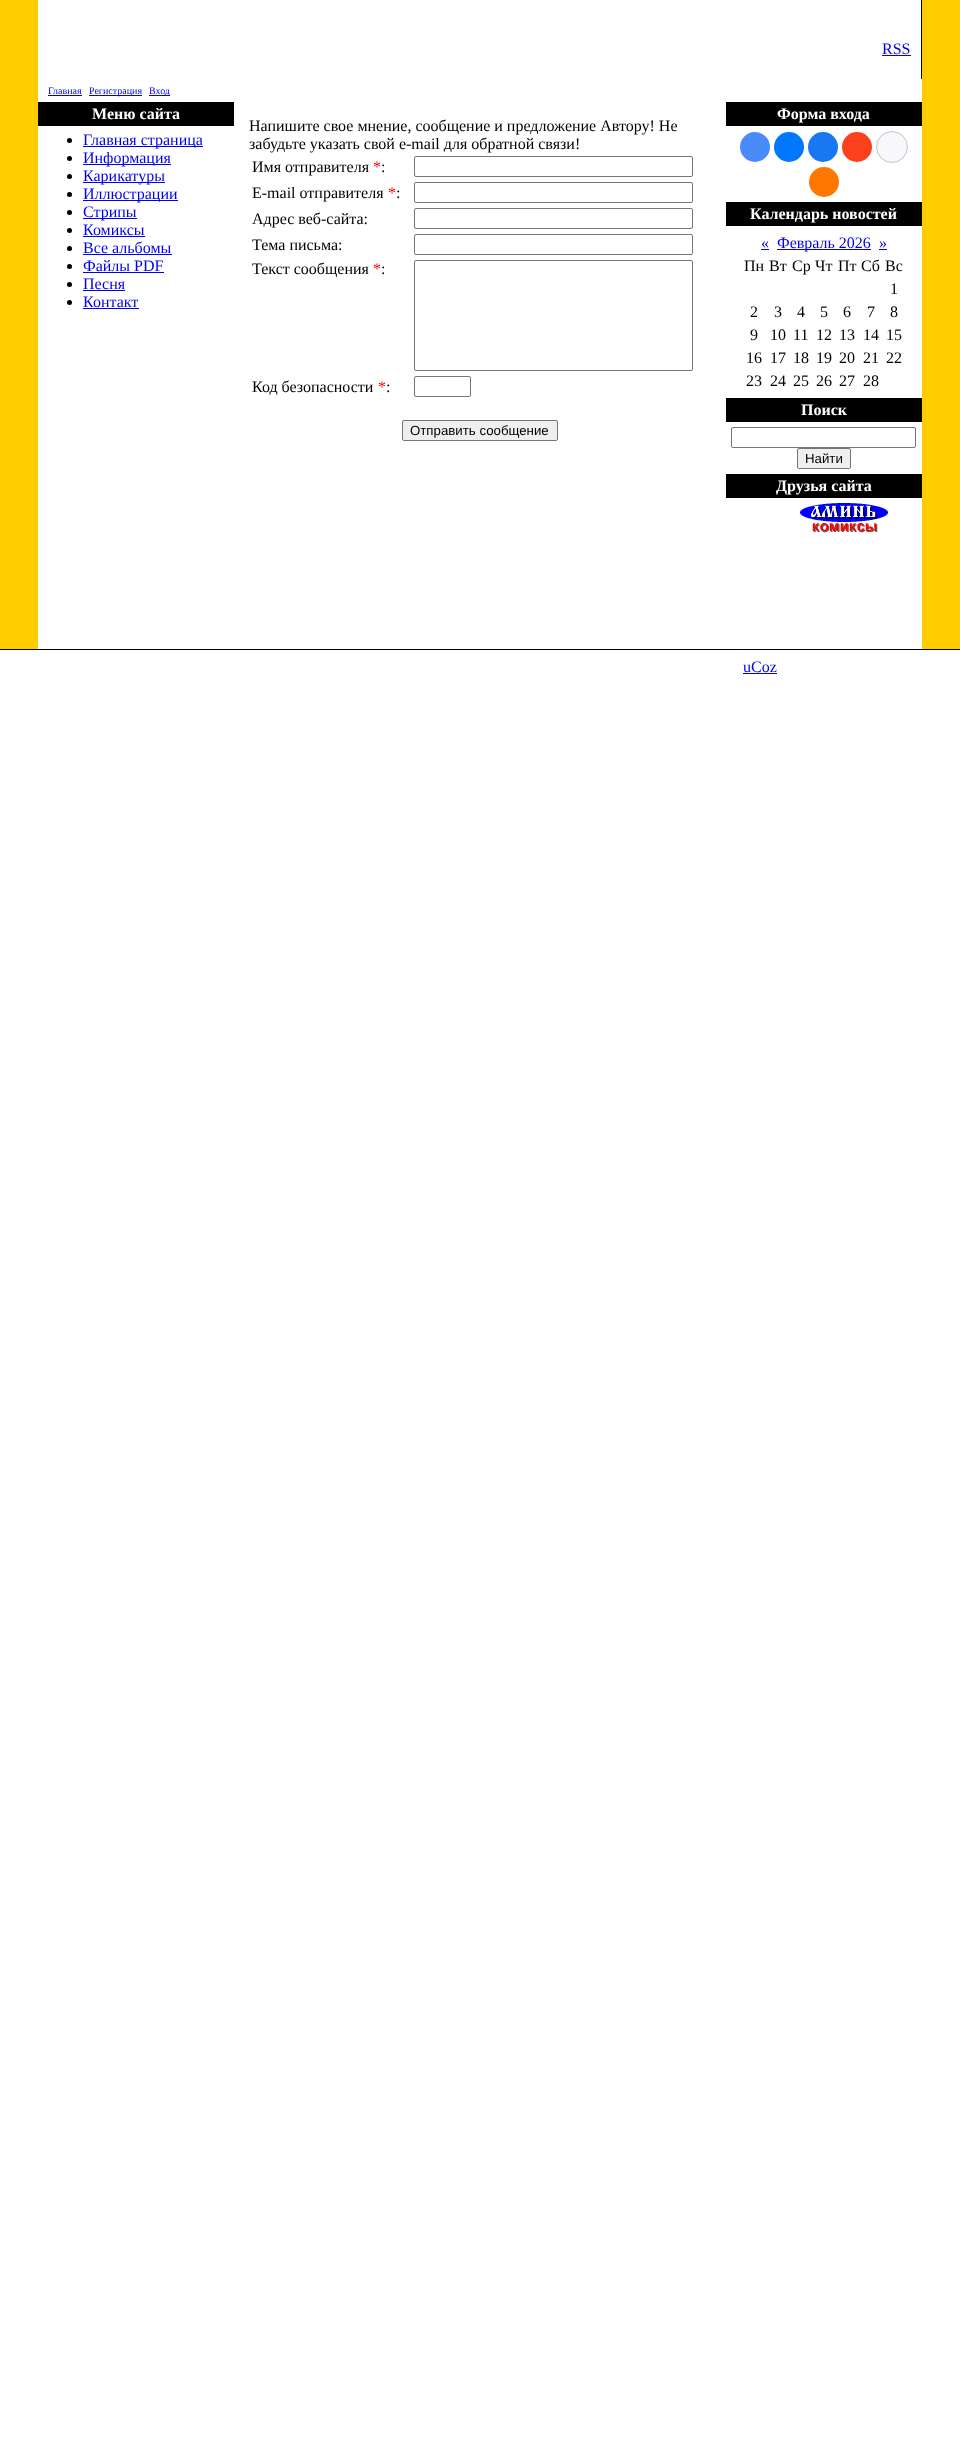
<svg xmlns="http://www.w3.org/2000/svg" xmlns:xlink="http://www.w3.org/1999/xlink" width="960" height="2445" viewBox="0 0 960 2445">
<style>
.cls-1{font:16px Liberation Serif;fill:#0000ee}
.cls-2{font:10px Liberation Serif;fill:#0000ee}
.cls-3{font:bold 16px Liberation Serif;fill:#ffffff}
.cls-4{font:16px Liberation Serif;fill:#000000}
.cls-5{font:16px Liberation Serif;fill:#ff0000}
.cls-6{font:13.25px Liberation Sans;fill:#000000}
</style>
<rect width="100%" height="100%" fill="#ffffff"/>
<rect fill="#ffcc00" x="0" y="0" width="38" height="649"/>
<rect fill="#000000" x="921" y="0" width="1" height="79"/>
<rect fill="#0000ee" x="882" y="55" width="29" height="1"/>
<rect fill="#0000ee" x="48" y="95" width="34" height="1"/>
<rect fill="#0000ee" x="89" y="95" width="53" height="1"/>
<rect fill="#0000ee" x="149" y="95" width="21" height="1"/>
<rect fill="#000000" x="38" y="102" width="196" height="24"/>
<circle fill="#000000" cx="69.5" cy="140.5" r="2.5"/>
<rect fill="#0000ee" x="83" y="146" width="120" height="1"/>
<circle fill="#000000" cx="69.5" cy="158.5" r="2.5"/>
<rect fill="#0000ee" x="83" y="164" width="88" height="1"/>
<circle fill="#000000" cx="69.5" cy="176.5" r="2.5"/>
<rect fill="#0000ee" x="83" y="182" width="82" height="1"/>
<circle fill="#000000" cx="69.5" cy="194.5" r="2.5"/>
<rect fill="#0000ee" x="83" y="200" width="95" height="1"/>
<circle fill="#000000" cx="69.5" cy="212.5" r="2.5"/>
<rect fill="#0000ee" x="83" y="218" width="54" height="1"/>
<circle fill="#000000" cx="69.5" cy="230.5" r="2.5"/>
<rect fill="#0000ee" x="83" y="236" width="62" height="1"/>
<circle fill="#000000" cx="69.5" cy="248.5" r="2.5"/>
<rect fill="#0000ee" x="83" y="254" width="89" height="1"/>
<circle fill="#000000" cx="69.5" cy="266.5" r="2.5"/>
<rect fill="#0000ee" x="83" y="272" width="81" height="1"/>
<circle fill="#000000" cx="69.5" cy="284.5" r="2.5"/>
<rect fill="#0000ee" x="83" y="290" width="42" height="1"/>
<circle fill="#000000" cx="69.5" cy="302.5" r="2.5"/>
<rect fill="#0000ee" x="83" y="308" width="56" height="1"/>
<rect fill="none" stroke="#767676" x="414.5" y="156.5" width="278" height="20" rx="1.5"/>
<rect fill="none" stroke="#767676" x="414.5" y="182.5" width="278" height="20" rx="1.5"/>
<rect fill="none" stroke="#767676" x="414.5" y="208.5" width="278" height="20" rx="1.5"/>
<rect fill="none" stroke="#767676" x="414.5" y="234.5" width="278" height="20" rx="1.5"/>
<rect fill="none" stroke="#767676" x="414.5" y="260.5" width="278" height="110" rx="1.5"/>
<rect fill="none" stroke="#767676" x="414.5" y="376.5" width="56" height="20" rx="1.5"/>
<rect fill="#efefef" stroke="#767676" x="402.5" y="420.5" width="155" height="20" rx="1.5"/>
<rect fill="#000000" x="726" y="102" width="196" height="24"/>
<circle fill="#498bfa" cx="755" cy="147" r="15"/>
<circle fill="#0077ff" cx="789" cy="147" r="15"/>
<circle fill="#1877f2" cx="823" cy="147" r="15"/>
<circle fill="#fc3f1d" cx="857" cy="147" r="15"/>
<circle fill="#f8f8fc" stroke="#c4c4c4" cx="892" cy="147" r="15.5"/>
<circle fill="#ff7700" cx="824" cy="182" r="15"/>
<rect fill="#000000" x="726" y="202" width="196" height="24"/>
<rect fill="#0000ee" x="761" y="249" width="8" height="1"/>
<rect fill="#0000ee" x="777" y="249" width="94" height="1"/>
<rect fill="#0000ee" x="879" y="249" width="8" height="1"/>
<rect fill="#000000" x="726" y="398" width="196" height="24"/>
<rect fill="none" stroke="#767676" x="731.5" y="427.5" width="184" height="20" rx="1.5"/>
<rect fill="#efefef" stroke="#767676" x="797.5" y="448.5" width="53" height="20" rx="1.5"/>
<rect fill="#000000" x="726" y="474" width="196" height="24"/>
<image xlink:href="image0.png" x="800" y="503" width="88" height="30"/>
<rect fill="#ffcc00" x="922" y="0" width="38" height="649"/>
<rect fill="#000000" x="0" y="649" width="960" height="1"/>
<rect fill="#0000ee" x="743" y="673" width="34" height="1"/>
<text class="cls-1" x="882" y="54">RSS</text>
<text class="cls-2" x="48" y="94">Главная</text>
<text class="cls-2" x="89" y="94">Регистрация</text>
<text class="cls-2" x="149" y="94">Вход</text>
<text class="cls-3" x="92" y="119">Меню сайта</text>
<text class="cls-1"><tspan x="83" y="145">Главная страница</tspan><tspan x="83" y="163">Информация</tspan><tspan x="83" y="181">Карикатуры</tspan><tspan x="83" y="199">Иллюстрации</tspan><tspan x="83" y="217">Стрипы</tspan><tspan x="83" y="235">Комиксы</tspan><tspan x="83" y="253">Все альбомы</tspan><tspan x="83" y="271">Файлы PDF</tspan><tspan x="83" y="289">Песня</tspan><tspan x="83" y="307">Контакт</tspan></text>
<text class="cls-4"><tspan x="249" y="131">Напишите свое мнение, сообщение и предложение Автору! Не</tspan><tspan x="249" y="149">забудьте указать свой e-mail для обратной связи!</tspan></text>
<text class="cls-4" x="252" y="172">Имя отправителя</text>
<text class="cls-5" x="373" y="172">*</text>
<text class="cls-4" x="381" y="172">:</text>
<text class="cls-4" x="252" y="198">E-mail отправителя</text>
<text class="cls-5" x="388" y="198">*</text>
<text class="cls-4" x="396" y="198">:</text>
<text class="cls-4"><tspan x="252" y="224">Адрес веб-сайта:</tspan><tspan x="252" y="250">Тема письма:</tspan><tspan x="252" y="274">Текст сообщения</tspan></text>
<text class="cls-5" x="373" y="274">*</text>
<text class="cls-4" x="381" y="274">:</text>
<text class="cls-4" x="252" y="392">Код безопасности</text>
<text class="cls-5" x="378" y="392">*</text>
<text class="cls-4" x="386" y="392">:</text>
<text class="cls-6" x="410" y="435">Отправить сообщение</text>
<text class="cls-3" x="777" y="119">Форма входа</text>
<text class="cls-3" x="750" y="219">Календарь новостей</text>
<text class="cls-1" x="761" y="248">«</text>
<text class="cls-1" x="777" y="248">Февраль 2026</text>
<text class="cls-1" x="879" y="248">»</text>
<text class="cls-4" x="744" y="271">Пн</text>
<text class="cls-4" x="769" y="271">Вт</text>
<text class="cls-4" x="792" y="271">Ср</text>
<text class="cls-4" x="815" y="271">Чт</text>
<text class="cls-4" x="838" y="271">Пт</text>
<text class="cls-4" x="861" y="271">Сб</text>
<text class="cls-4" x="885" y="271">Вс</text>
<text class="cls-4" x="890" y="294">1</text>
<text class="cls-4" x="750" y="317">2</text>
<text class="cls-4" x="774" y="317">3</text>
<text class="cls-4" x="797" y="317">4</text>
<text class="cls-4" x="820" y="317">5</text>
<text class="cls-4" x="843" y="317">6</text>
<text class="cls-4" x="867" y="317">7</text>
<text class="cls-4" x="890" y="317">8</text>
<text class="cls-4" x="750" y="340">9</text>
<text class="cls-4" x="770" y="340">10</text>
<text class="cls-4" x="793" y="340">11</text>
<text class="cls-4" x="816" y="340">12</text>
<text class="cls-4" x="839" y="340">13</text>
<text class="cls-4" x="863" y="340">14</text>
<text class="cls-4" x="886" y="340">15</text>
<text class="cls-4" x="746" y="363">16</text>
<text class="cls-4" x="770" y="363">17</text>
<text class="cls-4" x="793" y="363">18</text>
<text class="cls-4" x="816" y="363">19</text>
<text class="cls-4" x="839" y="363">20</text>
<text class="cls-4" x="863" y="363">21</text>
<text class="cls-4" x="886" y="363">22</text>
<text class="cls-4" x="746" y="386">23</text>
<text class="cls-4" x="770" y="386">24</text>
<text class="cls-4" x="793" y="386">25</text>
<text class="cls-4" x="816" y="386">26</text>
<text class="cls-4" x="839" y="386">27</text>
<text class="cls-4" x="863" y="386">28</text>
<text class="cls-3" x="801" y="415">Поиск</text>
<text class="cls-6" x="805" y="463">Найти</text>
<text class="cls-3" x="776" y="491">Друзья сайта</text>
<text class="cls-1" x="743" y="672">uCoz</text>
</svg>
